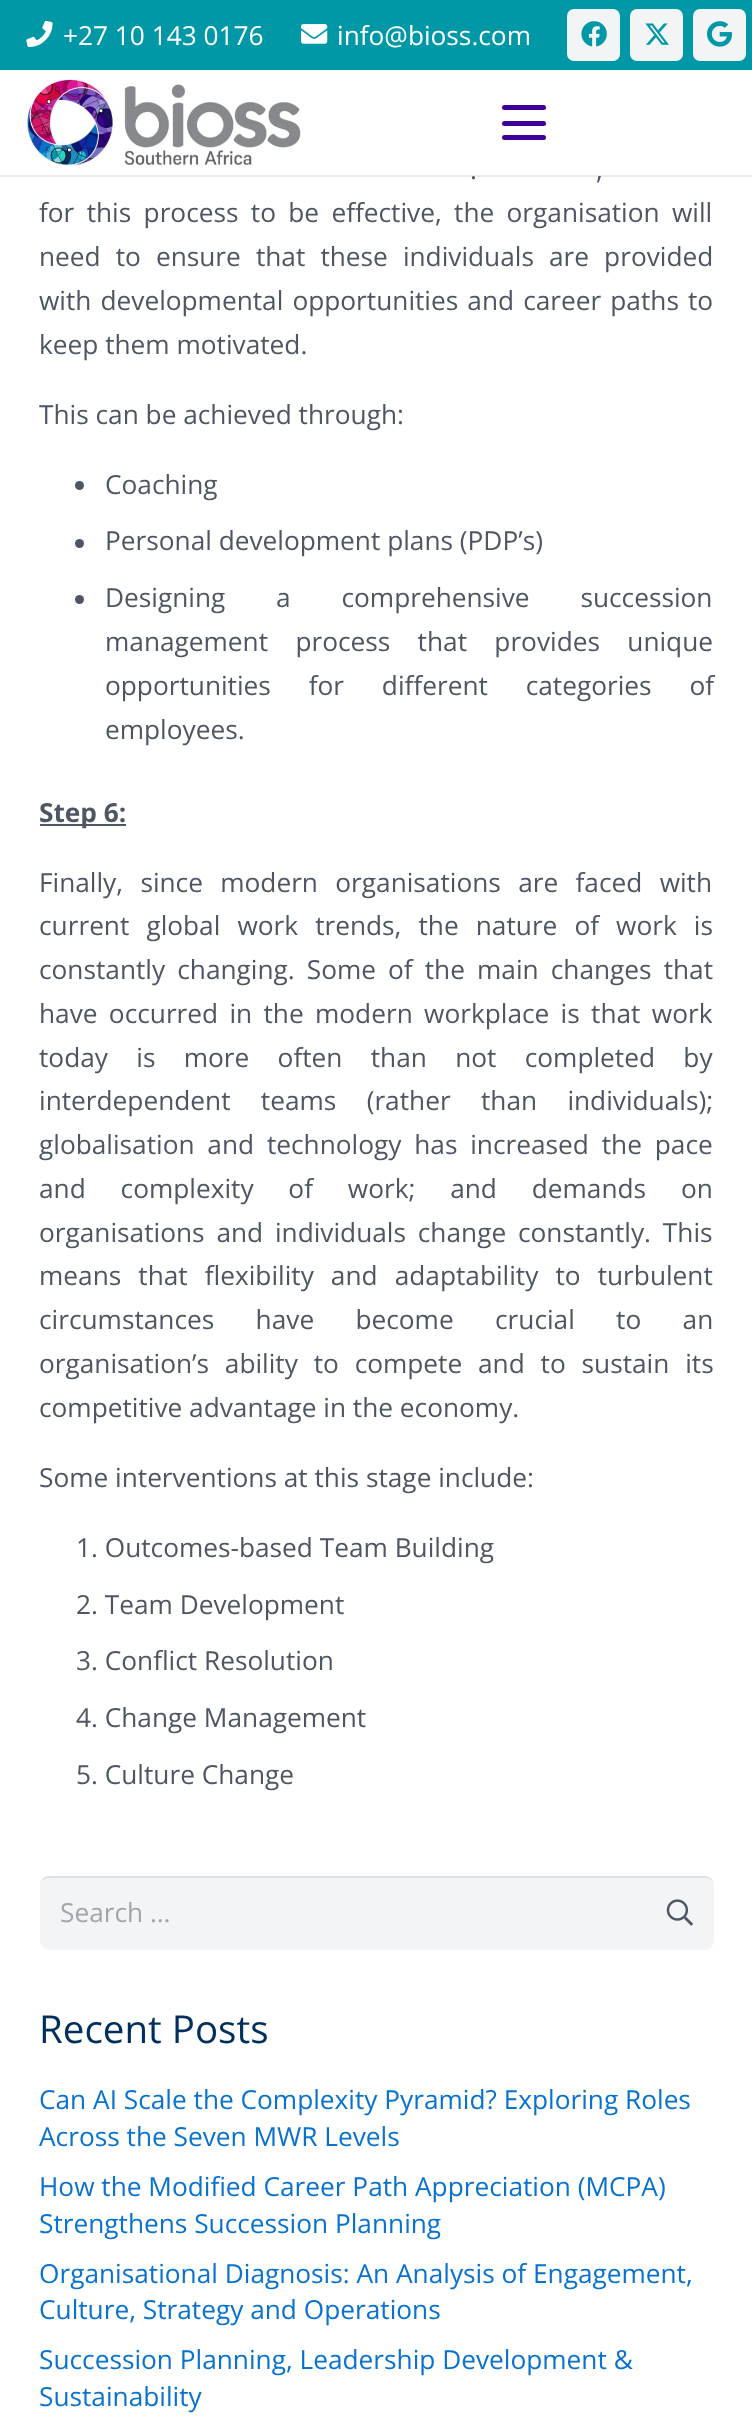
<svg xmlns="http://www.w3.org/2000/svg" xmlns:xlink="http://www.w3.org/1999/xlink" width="752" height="2421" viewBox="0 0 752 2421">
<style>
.cls-1{font:26.25px Open Sans;fill:#ffffff}
.cls-2{font:26.25px Open Sans;fill:#4e5663}
.cls-3{font:bold 26.25px Open Sans;fill:#4e5663}
.cls-4{font:26.25px Open Sans;fill:#a0a5ac}
.cls-5{font:38.5px Open Sans;fill:#002f5d}
.cls-6{font:26.25px Open Sans;fill:#0972ce}
</style>
<rect width="100%" height="100%" fill="#ffffff"/>
<rect fill="#0098a6" x="0" y="0" width="752" height="70"/>
<image xlink:href="image0.png" x="26" y="20" width="27" height="27"/>
<image xlink:href="image1.png" x="301" y="24" width="27" height="20"/>
<rect fill="#f2f4f5" x="567" y="9" width="53" height="52" rx="7"/>
<image xlink:href="image2.png" x="581" y="21" width="26" height="26"/>
<rect fill="#f2f4f5" x="630" y="9" width="53" height="52" rx="7"/>
<image xlink:href="image3.png" x="645" y="23" width="24" height="22"/>
<rect fill="#f2f4f5" x="693" y="9" width="53" height="52" rx="7"/>
<image xlink:href="image4.png" x="707" y="21" width="25" height="26"/>
<path fill="#000000" fill-opacity="0.08" d="M0 175V177H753V72H752V175Z"/>
<image xlink:href="image5.png" x="26" y="79" width="275" height="87"/>
<rect fill="#3f0099" x="502" y="121" width="44" height="5" rx="2.5"/>
<rect fill="#3f0099" x="502" y="105" width="44" height="5" rx="2.5"/>
<rect fill="#3f0099" x="502" y="135" width="44" height="5" rx="2.5"/>
<circle fill="#4e5663" cx="79.5" cy="485.5" r="4.5"/>
<circle fill="#4e5663" cx="79.5" cy="543.5" r="4.5"/>
<circle fill="#4e5663" cx="79.5" cy="599.5" r="4.5"/>
<rect fill="#4e5663" x="40" y="824" width="86" height="2"/>
<rect fill="#f2f4f5" x="40" y="1876" width="674" height="74" rx="9"/>
<path fill="#000000" fill-opacity="0.08" d="M48 1878H706C710 1878 714 1881 714 1886C714 1881 711 1876 705 1876H49C43 1876 40 1881 40 1886C40 1881 44 1878 48 1878Z"/>
<image xlink:href="image6.png" x="666" y="1899" width="27" height="27"/>
<text class="cls-1" x="63" y="45">+27 10 143 0176</text>
<text class="cls-1" x="337" y="45">info@bioss.com</text>
<text class="cls-2" x="470" y="179" word-spacing="3">.</text>
<text class="cls-2" x="596" y="179" word-spacing="3">,</text>
<text class="cls-2"><tspan x="39" y="222" word-spacing="5.5">for this process to be effective, the organisation will</tspan><tspan x="39" y="266" word-spacing="8.25">need to ensure that these individuals are provided</tspan><tspan x="39" y="310" word-spacing="2.25">with developmental opportunities and career paths to</tspan><tspan x="39" y="354">keep them motivated.</tspan></text>
<text class="cls-2" x="39" y="424">This can be achieved through:</text>
<text class="cls-2" x="105" y="494">Coaching</text>
<text class="cls-2" x="105" y="550">Personal development plans (PDP’s)</text>
<text class="cls-2"><tspan x="105" y="607" word-spacing="44">Designing a comprehensive succession</tspan><tspan x="105" y="651" word-spacing="20.5">management process that provides unique</tspan><tspan x="105" y="695" word-spacing="31">opportunities for different categories of</tspan><tspan x="105" y="739">employees.</tspan></text>
<text class="cls-3" x="39" y="822">Step 6:</text>
<text class="cls-2"><tspan x="39" y="892" word-spacing="10.5">Finally, since modern organisations are faced with</tspan><tspan x="39" y="935" word-spacing="10.25">current global work trends, the nature of work is</tspan><tspan x="39" y="979" word-spacing="5.25">constantly changing. Some of the main changes that</tspan><tspan x="39" y="1023" word-spacing="4.5">have occurred in the modern workplace is that work</tspan><tspan x="39" y="1067" word-spacing="21.5">today is more often than not completed by</tspan><tspan x="39" y="1110" word-spacing="23.5">interdependent teams (rather than individuals);</tspan><tspan x="39" y="1154" word-spacing="6">globalisation and technology has increased the pace</tspan><tspan x="39" y="1198" word-spacing="28">and complexity of work; and demands on</tspan><tspan x="39" y="1242" word-spacing="5">organisations and individuals change constantly. This</tspan><tspan x="39" y="1285" word-spacing="10.25">means that flexibility and adaptability to turbulent</tspan><tspan x="39" y="1329" word-spacing="34.5">circumstances have become crucial to an</tspan><tspan x="39" y="1373" word-spacing="9">organisation’s ability to compete and to sustain its</tspan><tspan x="39" y="1417">competitive advantage in the economy.</tspan></text>
<text class="cls-2" x="39" y="1487">Some interventions at this stage include:</text>
<text class="cls-2" x="76" y="1557">1. Outcomes-based Team Building</text>
<text class="cls-2" x="76" y="1614">2. Team Development</text>
<text class="cls-2" x="76" y="1670">3. Conflict Resolution</text>
<text class="cls-2" x="76" y="1727">4. Change Management</text>
<text class="cls-2" x="76" y="1784">5. Culture Change</text>
<text class="cls-4" x="60" y="1922">Search …</text>
<text class="cls-5" x="39" y="2043">Recent Posts</text>
<text class="cls-6"><tspan x="39" y="2109">Can AI Scale the Complexity Pyramid? Exploring Roles</tspan><tspan x="39" y="2146">Across the Seven MWR Levels</tspan><tspan x="39" y="2196">How the Modified Career Path Appreciation (MCPA)</tspan><tspan x="39" y="2233">Strengthens Succession Planning</tspan><tspan x="39" y="2283">Organisational Diagnosis: An Analysis of Engagement,</tspan><tspan x="39" y="2319">Culture, Strategy and Operations</tspan><tspan x="39" y="2369">Succession Planning, Leadership Development &amp;</tspan><tspan x="39" y="2406">Sustainability</tspan></text>
</svg>
